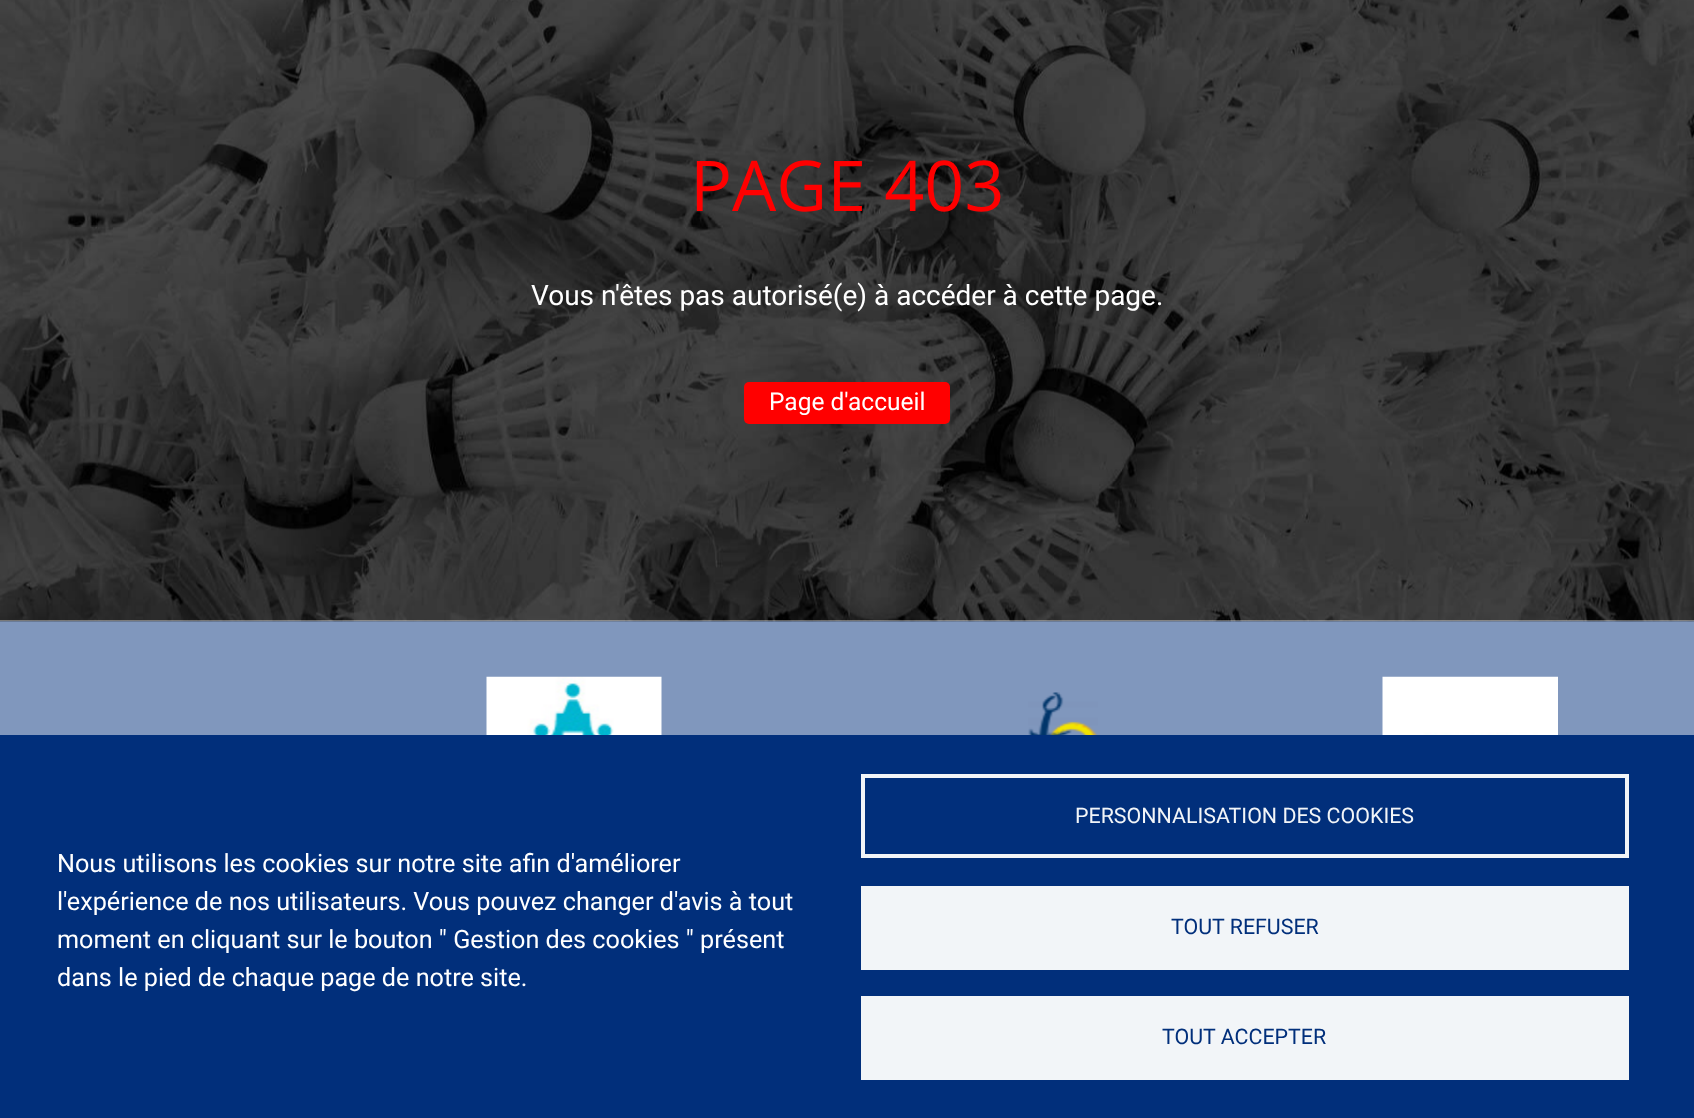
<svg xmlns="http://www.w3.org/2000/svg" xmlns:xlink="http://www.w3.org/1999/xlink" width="1694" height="1118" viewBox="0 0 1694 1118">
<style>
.cls-1{font:70px Open Sans;fill:#ff0000}
.cls-2{font:28px Roboto;fill:#ffffff}
.cls-3{font:24.5px Roboto;fill:#ffffff}
.cls-4{font:25.2px Roboto;fill:#ffffff}
.cls-5{font:21.4px Roboto;fill:#f2f5f8}
.cls-6{font:21.4px Roboto;fill:#012f7b}
</style>
<rect width="100%" height="100%" fill="#ffffff"/>
<rect fill="#8097bd" x="0" y="621" width="1694" height="114"/>
<image xlink:href="image0.png" x="0" y="0" width="1694" height="622"/>
<rect fill="#ff0000" x="744" y="382" width="206" height="42" rx="5"/>
<image xlink:href="image1.png" x="486" y="676" width="176" height="59"/>
<image xlink:href="image2.png" x="1028" y="692" width="70" height="43"/>
<image xlink:href="image3.png" x="1382" y="676" width="176" height="59"/>
<rect fill="#012f7b" x="0" y="735" width="1694" height="383"/>
<rect fill="none" stroke="#f2f5f8" stroke-width="4" x="863" y="776" width="764" height="80"/>
<rect fill="#f2f5f8" x="861" y="886" width="768" height="84"/>
<rect fill="#f2f5f8" x="861" y="996" width="768" height="84"/>
<text class="cls-1" x="690" y="211">PAGE 403</text>
<text class="cls-2" x="531" y="305">Vous n'êtes pas autorisé(e) à accéder à cette page.</text>
<text class="cls-3" x="769" y="410">Page d'accueil</text>
<text class="cls-4"><tspan x="57" y="872">Nous utilisons les cookies sur notre site afin d'améliorer</tspan><tspan x="57" y="910">l'expérience de nos utilisateurs. Vous pouvez changer d'avis à tout</tspan><tspan x="57" y="948">moment en cliquant sur le bouton " Gestion des cookies " présent</tspan><tspan x="57" y="986">dans le pied de chaque page de notre site.</tspan></text>
<text class="cls-5" x="1075" y="823">PERSONNALISATION DES COOKIES</text>
<text class="cls-6" x="1171" y="934">TOUT REFUSER</text>
<text class="cls-6" x="1162" y="1044">TOUT ACCEPTER</text>
</svg>
